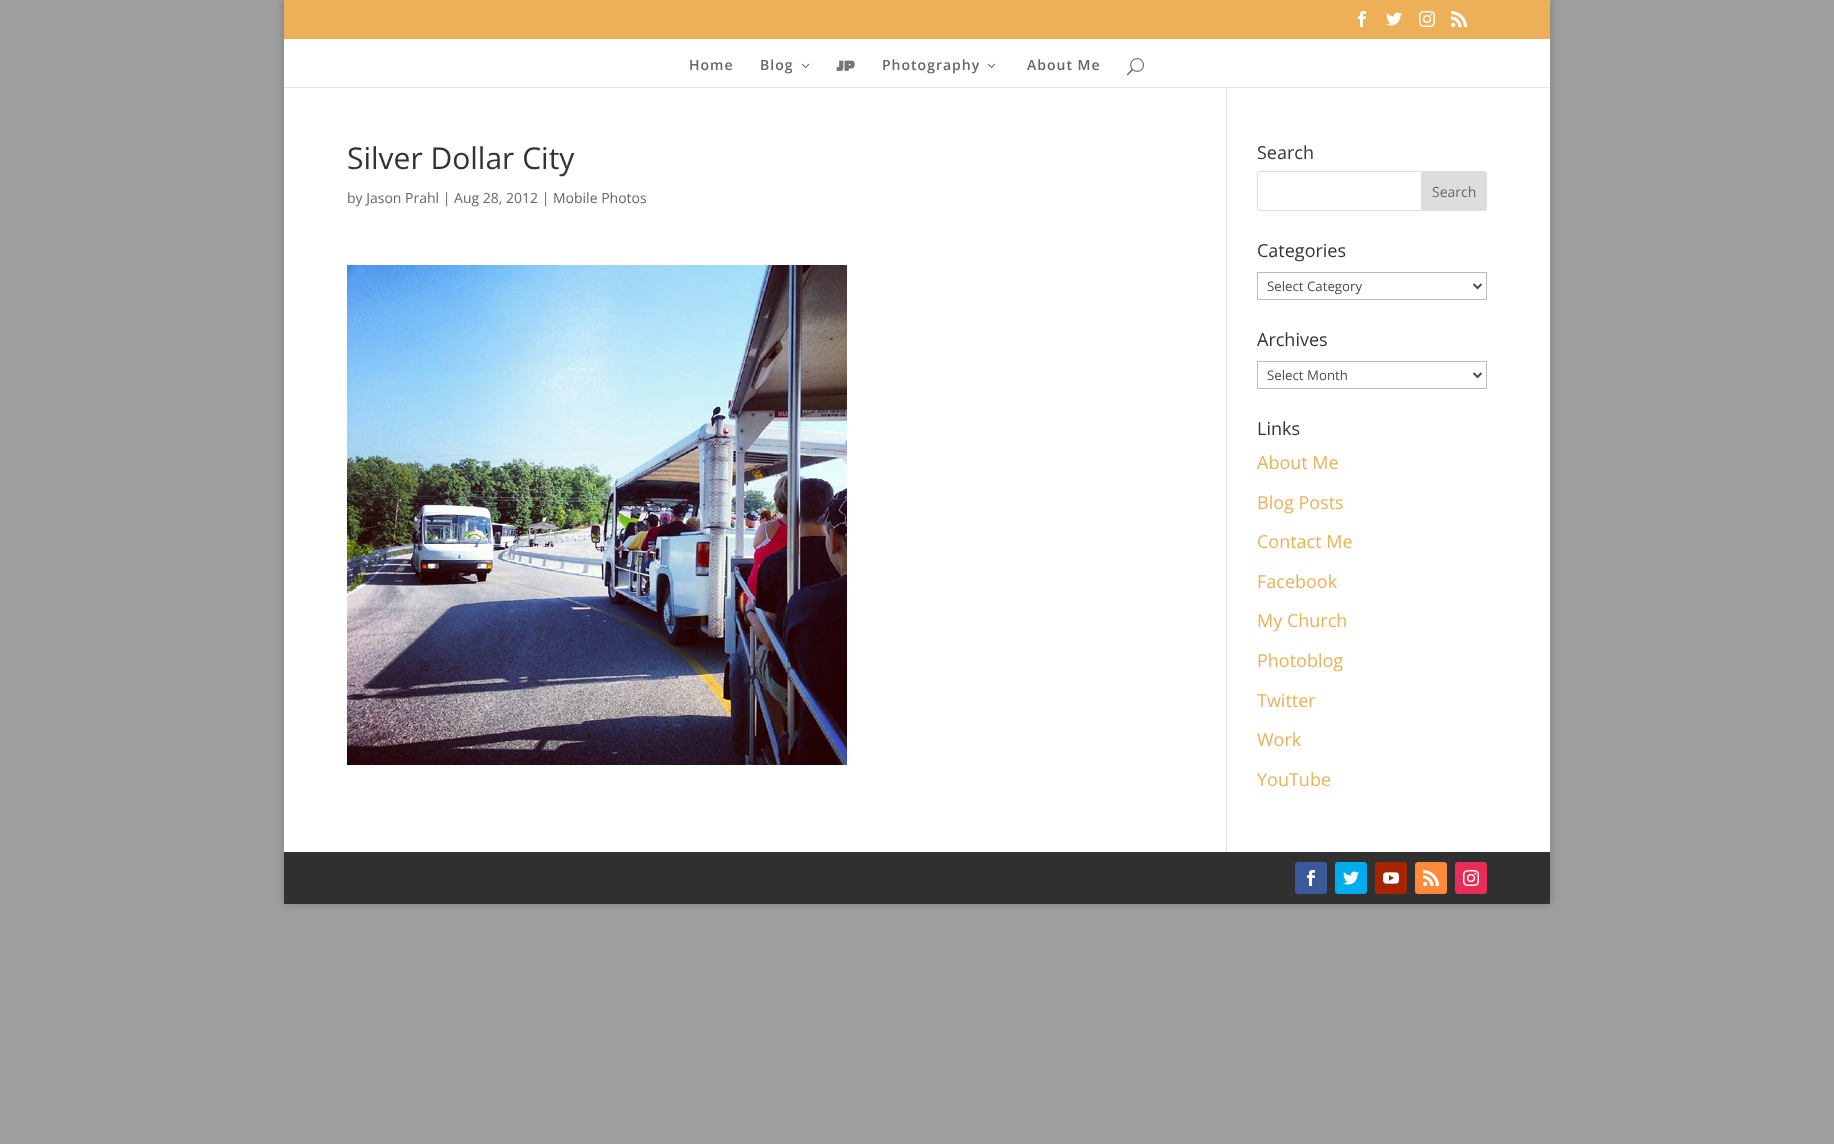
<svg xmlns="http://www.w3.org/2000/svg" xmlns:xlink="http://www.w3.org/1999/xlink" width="1834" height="1144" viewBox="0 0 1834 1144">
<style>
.cls-1{font:600 14px Open Sans;letter-spacing:1px;fill:#666666}
.cls-2{font:30px Open Sans;fill:#333333}
.cls-3{font:14px Open Sans;fill:#666666}
.cls-4{font:18px Open Sans;fill:#333333}
.cls-5{font:13.25px Open Sans;fill:#4e4e4e}
.cls-6{font:18px Open Sans;fill:#edb059}
</style>
<rect width="100%" height="100%" fill="#9e9e9e"/>
<rect fill="#000000" fill-opacity="0.2" filter="blur(5px)" x="284" y="-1" width="1266" height="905"/>
<rect fill="#edb059" x="284" y="0" width="1266" height="39"/>
<image xlink:href="image0.png" x="1358" y="11" width="8" height="16"/>
<image xlink:href="image1.png" x="1386" y="12" width="16" height="14"/>
<image xlink:href="image2.png" x="1419" y="11" width="16" height="16"/>
<image xlink:href="image3.png" x="1451" y="11" width="16" height="16"/>
<rect fill="#ffffff" x="284" y="88" width="1266" height="764"/>
<rect fill="#e6e6e6" x="284" y="87" width="1266" height="1"/>
<rect fill="#e2e2e2" x="1226" y="85" width="1" height="767"/>
<rect fill="#ffffff" x="284" y="39" width="1266" height="48"/>
<image xlink:href="image4.png" x="801" y="63" width="9" height="5"/>
<image xlink:href="image5.png" x="836" y="60" width="19" height="12"/>
<image xlink:href="image4.png" x="987" y="63" width="9" height="5"/>
<image xlink:href="image6.png" x="1127" y="58" width="17" height="18"/>
<rect fill="#cbcbcb" x="1226" y="87" width="1" height="1"/>
<image xlink:href="image7.png" x="347" y="265" width="500" height="500"/>
<rect fill="none" stroke="#dddddd" x="1257.5" y="171.5" width="229" height="39" rx="2.5"/>
<path fill="#dddddd" stroke="#dddddd" d="M1421.5 171.5H1484C1485.5 171.5 1486.5 172.5 1486.5 174V208C1486.5 209.5 1485.5 210.5 1484 210.5H1421.5Z"/>
<rect fill="none" stroke="#bbbbbb" x="1257.5" y="272.5" width="229" height="27"/>
<path fill="none" stroke="#4e4e4e" stroke-width="2" d="M1473.5 284L1477.5 288L1481.5 284"/>
<rect fill="none" stroke="#bbbbbb" x="1257.5" y="361.5" width="229" height="27"/>
<path fill="none" stroke="#4e4e4e" stroke-width="2" d="M1473.5 373L1477.5 377L1481.5 373"/>
<rect fill="#303030" x="284" y="852" width="1266" height="52"/>
<rect fill="#3b5998" x="1295" y="862" width="32" height="32" rx="3"/>
<image xlink:href="image8.png" x="1307" y="870" width="8" height="16"/>
<rect fill="#00aced" x="1335" y="862" width="32" height="32" rx="3"/>
<image xlink:href="image9.png" x="1343" y="871" width="16" height="14"/>
<rect fill="#a82400" x="1375" y="862" width="32" height="32" rx="3"/>
<image xlink:href="image10.png" x="1383" y="872" width="16" height="12"/>
<rect fill="#ff8a3c" x="1415" y="862" width="32" height="32" rx="3"/>
<image xlink:href="image11.png" x="1423" y="870" width="16" height="16"/>
<rect fill="#ea2c59" x="1455" y="862" width="32" height="32" rx="3"/>
<image xlink:href="image12.png" x="1463" y="870" width="16" height="16"/>
<text class="cls-1" x="689" y="70">Home</text>
<text class="cls-1" x="760" y="70">Blog</text>
<text class="cls-1" x="882" y="70">Photography</text>
<text class="cls-1" x="1027" y="70">About Me</text>
<text class="cls-2" x="347" y="169">Silver Dollar City</text>
<text class="cls-3" x="347" y="203">by Jason Prahl | Aug 28, 2012 | Mobile Photos</text>
<text class="cls-4" x="1257" y="159">Search</text>
<text class="cls-3" x="1432" y="197">Search</text>
<text class="cls-4" x="1257" y="257">Categories</text>
<text class="cls-5" x="1267" y="291">Select Category</text>
<text class="cls-4" x="1257" y="346">Archives</text>
<text class="cls-5" x="1267" y="380">Select Month</text>
<text class="cls-4" x="1257" y="435">Links</text>
<text class="cls-6" x="1257" y="469">About Me</text>
<text class="cls-6" x="1257" y="509">Blog Posts</text>
<text class="cls-6" x="1257" y="548">Contact Me</text>
<text class="cls-6" x="1257" y="588">Facebook</text>
<text class="cls-6" x="1257" y="627">My Church</text>
<text class="cls-6" x="1257" y="667">Photoblog</text>
<text class="cls-6" x="1257" y="707">Twitter</text>
<text class="cls-6" x="1257" y="746">Work</text>
<text class="cls-6" x="1257" y="786">YouTube</text>
</svg>
